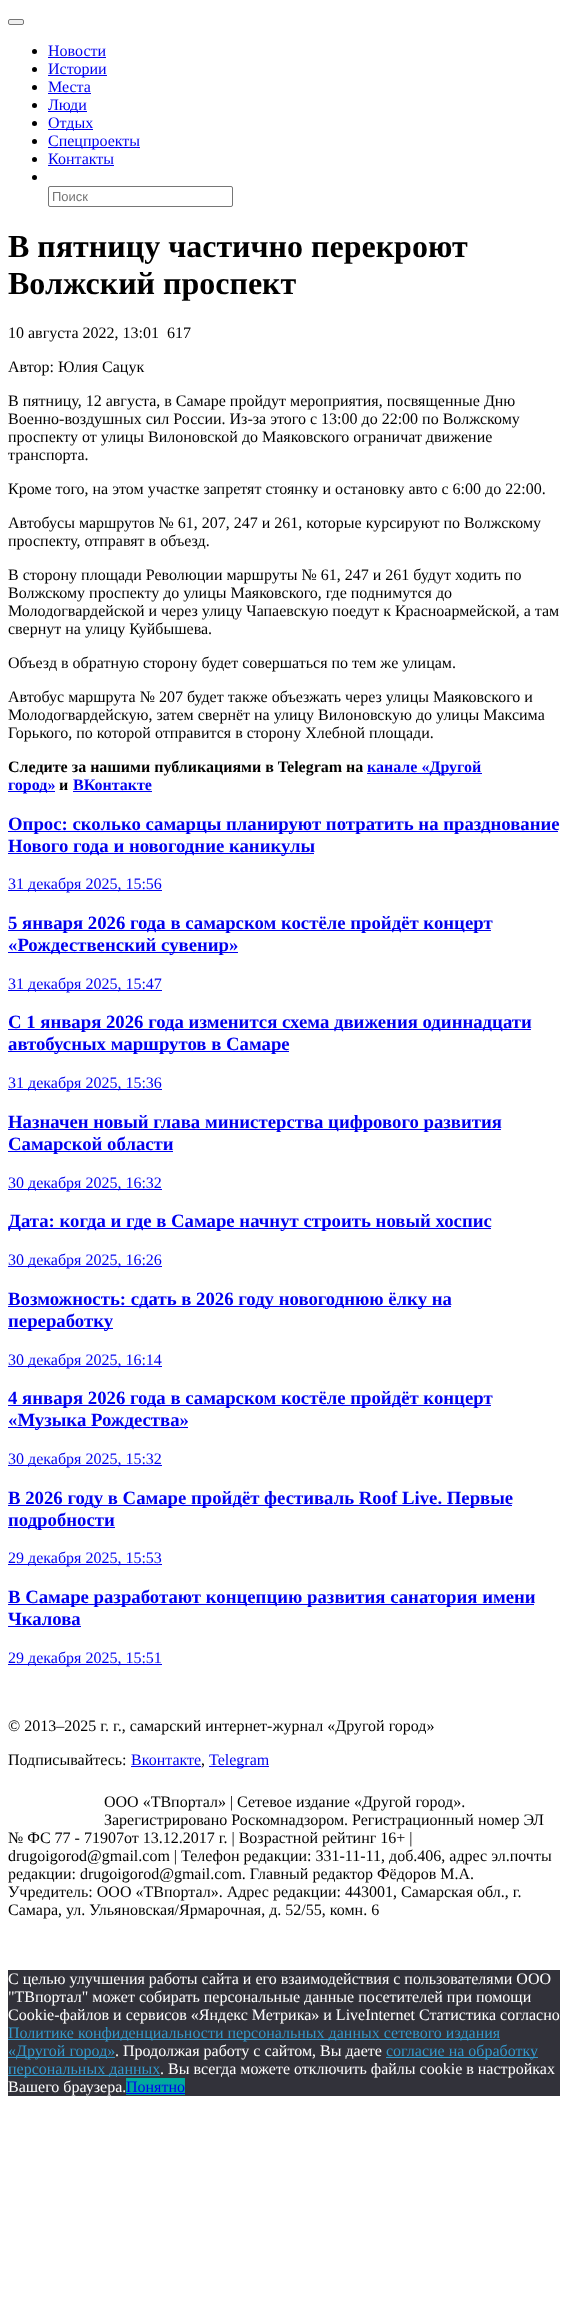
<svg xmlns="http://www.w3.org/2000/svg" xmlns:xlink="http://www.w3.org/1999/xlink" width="568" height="2310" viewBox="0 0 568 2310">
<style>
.cls-1{font:16px Liberation Serif;fill:#0000ee}
.cls-2{font:13px Liberation Sans;fill:#757575}
.cls-3{font:bold 32px Liberation Serif;fill:#000000}
.cls-4{font:16px Liberation Serif;fill:#000000}
.cls-5{font:bold 16px Liberation Serif;fill:#000000}
.cls-6{font:bold 16px Liberation Serif;fill:#0000ee}
.cls-7{font:bold 18.75px Liberation Serif;fill:#0000ee}
.cls-8{font:16px Liberation Serif;fill:#ffffff}
.cls-9{font:16px Liberation Serif;fill:#3399cc}
</style>
<rect width="100%" height="100%" fill="#ffffff"/>
<rect fill="#efefef" stroke="#767676" x="8.5" y="19.5" width="15" height="5" rx="1.5"/>
<circle fill="#000000" cx="34.5" cy="51.5" r="2.5"/>
<rect fill="#0000ee" x="48" y="57" width="58" height="1"/>
<circle fill="#000000" cx="34.5" cy="69.5" r="2.5"/>
<rect fill="#0000ee" x="48" y="75" width="59" height="1"/>
<circle fill="#000000" cx="34.5" cy="87.5" r="2.5"/>
<rect fill="#0000ee" x="48" y="93" width="43" height="1"/>
<circle fill="#000000" cx="34.5" cy="105.5" r="2.5"/>
<rect fill="#0000ee" x="48" y="111" width="39" height="1"/>
<circle fill="#000000" cx="34.5" cy="123.5" r="2.5"/>
<rect fill="#0000ee" x="48" y="129" width="45" height="1"/>
<circle fill="#000000" cx="34.5" cy="141.5" r="2.5"/>
<rect fill="#0000ee" x="48" y="147" width="92" height="1"/>
<circle fill="#000000" cx="34.5" cy="159.5" r="2.5"/>
<rect fill="#0000ee" x="48" y="165" width="66" height="1"/>
<circle fill="#000000" cx="34.5" cy="177.5" r="2.5"/>
<rect fill="none" stroke="#767676" x="48.5" y="186.5" width="184" height="20" rx="1.5"/>
<rect fill="#0000ee" x="367" y="773" width="115" height="1"/>
<rect fill="#0000ee" x="8" y="791" width="47" height="1"/>
<rect fill="#0000ee" x="73" y="791" width="79" height="1"/>
<rect fill="#0000ee" x="8" y="831" width="550" height="1"/>
<rect fill="#0000ee" x="8" y="853" width="306" height="1"/>
<rect fill="#0000ee" x="8" y="890" width="154" height="1"/>
<rect fill="#0000ee" x="8" y="930" width="483" height="1"/>
<rect fill="#0000ee" x="8" y="952" width="230" height="1"/>
<rect fill="#0000ee" x="8" y="990" width="154" height="1"/>
<rect fill="#0000ee" x="8" y="1029" width="523" height="1"/>
<rect fill="#0000ee" x="8" y="1051" width="281" height="1"/>
<rect fill="#0000ee" x="8" y="1089" width="154" height="1"/>
<rect fill="#0000ee" x="8" y="1129" width="493" height="1"/>
<rect fill="#0000ee" x="8" y="1151" width="165" height="1"/>
<rect fill="#0000ee" x="8" y="1189" width="154" height="1"/>
<rect fill="#0000ee" x="8" y="1228" width="483" height="1"/>
<rect fill="#0000ee" x="8" y="1266" width="154" height="1"/>
<rect fill="#0000ee" x="8" y="1306" width="443" height="1"/>
<rect fill="#0000ee" x="8" y="1328" width="105" height="1"/>
<rect fill="#0000ee" x="8" y="1366" width="154" height="1"/>
<rect fill="#0000ee" x="8" y="1405" width="483" height="1"/>
<rect fill="#0000ee" x="8" y="1427" width="180" height="1"/>
<rect fill="#0000ee" x="8" y="1465" width="154" height="1"/>
<rect fill="#0000ee" x="8" y="1505" width="504" height="1"/>
<rect fill="#0000ee" x="8" y="1527" width="107" height="1"/>
<rect fill="#0000ee" x="8" y="1564" width="154" height="1"/>
<rect fill="#0000ee" x="8" y="1604" width="526" height="1"/>
<rect fill="#0000ee" x="8" y="1626" width="73" height="1"/>
<rect fill="#0000ee" x="8" y="1664" width="154" height="1"/>
<rect fill="#0000ee" x="131" y="1766" width="70" height="1"/>
<rect fill="#0000ee" x="209" y="1766" width="60" height="1"/>
<rect fill="#32323a" x="8" y="1970" width="552" height="126"/>
<rect fill="#3399cc" x="8" y="2039" width="492" height="1"/>
<rect fill="#3399cc" x="8" y="2057" width="107" height="1"/>
<rect fill="#3399cc" x="386" y="2057" width="152" height="1"/>
<rect fill="#3399cc" x="8" y="2075" width="152" height="1"/>
<rect fill="#00a99d" x="126" y="2078" width="59" height="17"/>
<rect fill="#0000ee" x="126" y="2093" width="59" height="1"/>
<text class="cls-1"><tspan x="48" y="56">Новости</tspan><tspan x="48" y="74">Истории</tspan><tspan x="48" y="92">Места</tspan><tspan x="48" y="110">Люди</tspan><tspan x="48" y="128">Отдых</tspan><tspan x="48" y="146">Спецпроекты</tspan><tspan x="48" y="164">Контакты</tspan></text>
<text class="cls-2" x="52" y="201">Поиск</text>
<text class="cls-3"><tspan x="8" y="257">В пятницу частично перекроют</tspan><tspan x="8" y="294">Волжский проспект</tspan></text>
<text class="cls-4" x="8" y="338">10 августа 2022, 13:01</text>
<text class="cls-4" x="167" y="338">617</text>
<text class="cls-4" x="8" y="372">Автор: Юлия Сацук</text>
<text class="cls-4"><tspan x="8" y="406">В пятницу, 12 августа, в Самаре пройдут мероприятия, посвященные Дню</tspan><tspan x="8" y="424">Военно-воздушных сил России. Из-за этого с 13:00 до 22:00 по Волжскому</tspan><tspan x="8" y="442">проспекту от улицы Вилоновской до Маяковского ограничат движение</tspan><tspan x="8" y="460">транспорта.</tspan></text>
<text class="cls-4" x="8" y="494">Кроме того, на этом участке запретят стоянку и остановку авто с 6:00 до 22:00.</text>
<text class="cls-4"><tspan x="8" y="528">Автобусы маршрутов № 61, 207, 247 и 261, которые курсируют по Волжскому</tspan><tspan x="8" y="546">проспекту, отправят в объезд.</tspan></text>
<text class="cls-4"><tspan x="8" y="580">В сторону площади Революции маршруты № 61, 247 и 261 будут ходить по</tspan><tspan x="8" y="598">Волжскому проспекту до улицы Маяковского, где поднимутся до</tspan><tspan x="8" y="616">Молодогвардейской и через улицу Чапаевскую поедут к Красноармейской, а там</tspan><tspan x="8" y="634">свернут на улицу Куйбышева.</tspan></text>
<text class="cls-4" x="8" y="668">Объезд в обратную сторону будет совершаться по тем же улицам.</text>
<text class="cls-4"><tspan x="8" y="702">Автобус маршрута № 207 будет также объезжать через улицы Маяковского и</tspan><tspan x="8" y="720">Молодогвардейскую, затем свернёт на улицу Вилоновскую до улицы Максима</tspan><tspan x="8" y="738">Горького, по которой отправится в сторону Хлебной площади.</tspan></text>
<text class="cls-5" x="8" y="772">Следите за нашими публикациями в Telegram на</text>
<text class="cls-6" x="367" y="772">канале «Другой</text>
<text class="cls-6" x="8" y="790">город»</text>
<text class="cls-5" x="59" y="790">и</text>
<text class="cls-6" x="73" y="790">ВКонтакте</text>
<text class="cls-7"><tspan x="8" y="830">Опрос: сколько самарцы планируют потратить на празднование</tspan><tspan x="8" y="852">Нового года и новогодние каникулы</tspan></text>
<text class="cls-1" x="8" y="889">31 декабря 2025, 15:56</text>
<text class="cls-7"><tspan x="8" y="929">5 января 2026 года в самарском костёле пройдёт концерт</tspan><tspan x="8" y="951">«Рождественский сувенир»</tspan></text>
<text class="cls-1" x="8" y="989">31 декабря 2025, 15:47</text>
<text class="cls-7"><tspan x="8" y="1028">С 1 января 2026 года изменится схема движения одиннадцати</tspan><tspan x="8" y="1050">автобусных маршрутов в Самаре</tspan></text>
<text class="cls-1" x="8" y="1088">31 декабря 2025, 15:36</text>
<text class="cls-7"><tspan x="8" y="1128">Назначен новый глава министерства цифрового развития</tspan><tspan x="8" y="1150">Самарской области</tspan></text>
<text class="cls-1" x="8" y="1188">30 декабря 2025, 16:32</text>
<text class="cls-7" x="8" y="1227">Дата: когда и где в Самаре начнут строить новый хоспис</text>
<text class="cls-1" x="8" y="1265">30 декабря 2025, 16:26</text>
<text class="cls-7"><tspan x="8" y="1305">Возможность: сдать в 2026 году новогоднюю ёлку на</tspan><tspan x="8" y="1327">переработку</tspan></text>
<text class="cls-1" x="8" y="1365">30 декабря 2025, 16:14</text>
<text class="cls-7"><tspan x="8" y="1404">4 января 2026 года в самарском костёле пройдёт концерт</tspan><tspan x="8" y="1426">«Музыка Рождества»</tspan></text>
<text class="cls-1" x="8" y="1464">30 декабря 2025, 15:32</text>
<text class="cls-7"><tspan x="8" y="1504">В 2026 году в Самаре пройдёт фестиваль Roof Live. Первые</tspan><tspan x="8" y="1526">подробности</tspan></text>
<text class="cls-1" x="8" y="1563">29 декабря 2025, 15:53</text>
<text class="cls-7"><tspan x="8" y="1603">В Самаре разработают концепцию развития санатория имени</tspan><tspan x="8" y="1625">Чкалова</tspan></text>
<text class="cls-1" x="8" y="1663">29 декабря 2025, 15:51</text>
<text class="cls-4" x="8" y="1731">© 2013–2025 г. г., самарский интернет-журнал «Другой город»</text>
<text class="cls-4" x="8" y="1765">Подписывайтесь:</text>
<text class="cls-1" x="131" y="1765">Вконтакте</text>
<text class="cls-4" x="201" y="1765">,</text>
<text class="cls-1" x="209" y="1765">Telegram</text>
<text class="cls-4"><tspan x="104" y="1807">ООО «ТВпортал» | Сетевое издание «Другой город».</tspan><tspan x="104" y="1825">Зарегистрировано Роскомнадзором. Регистрационный номер ЭЛ</tspan></text>
<text class="cls-4"><tspan x="8" y="1843">№ ФС 77 - 71907от 13.12.2017 г. | Возрастной рейтинг 16+ |</tspan><tspan x="8" y="1861">drugoigorod@gmail.com | Телефон редакции: 331-11-11, доб.406, адрес эл.почты</tspan><tspan x="8" y="1879">редакции: drugoigorod@gmail.com. Главный редактор Фёдоров М.А.</tspan><tspan x="8" y="1897">Учредитель: ООО «ТВпортал». Адрес редакции: 443001, Самарская обл., г.</tspan><tspan x="8" y="1915">Самара, ул. Ульяновская/Ярмарочная, д. 52/55, комн. 6</tspan></text>
<text class="cls-8"><tspan x="8" y="1984">С целью улучшения работы сайта и его взаимодействия с пользователями ООО</tspan><tspan x="8" y="2002">"ТВпортал" может собирать персональные данные посетителей при помощи</tspan><tspan x="8" y="2020">Cookie-файлов и сервисов «Яндекс Метрика» и LiveInternet Статистика согласно</tspan></text>
<text class="cls-9"><tspan x="8" y="2038">Политике конфиденциальности персональных данных сетевого издания</tspan><tspan x="8" y="2056">«Другой город»</tspan></text>
<text class="cls-8" x="115" y="2056">. Продолжая работу с сайтом, Вы даете</text>
<text class="cls-9" x="386" y="2056">согласие на обработку</text>
<text class="cls-9" x="8" y="2074">персональных данных</text>
<text class="cls-8" x="160" y="2074">. Вы всегда можете отключить файлы cookie в настройках</text>
<text class="cls-8" x="8" y="2092">Вашего браузера.</text>
<text class="cls-1" x="126" y="2092">Понятно</text>
</svg>
